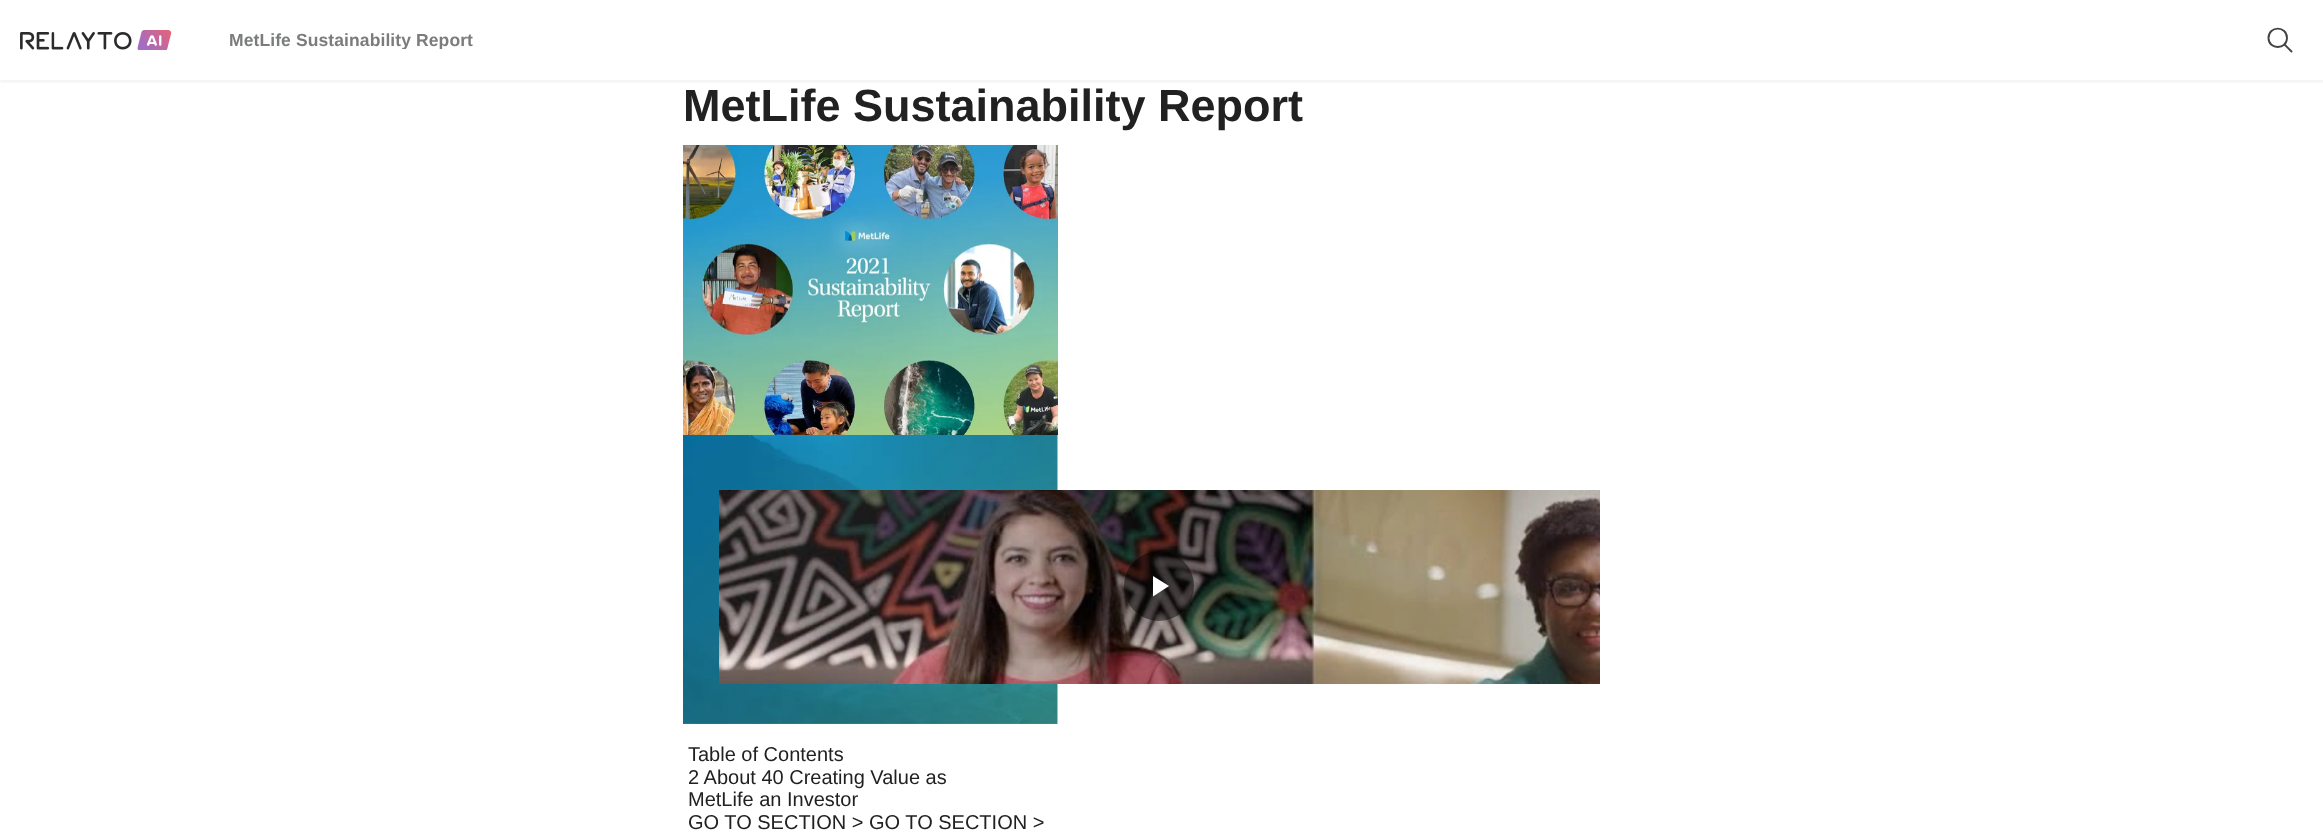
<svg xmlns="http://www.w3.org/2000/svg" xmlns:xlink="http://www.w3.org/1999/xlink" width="2323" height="836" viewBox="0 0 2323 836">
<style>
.cls-1{font:bold 17.5px Liberation Sans;letter-spacing:0.1px;fill:#7b7c7d}
.cls-2{font:bold 45px Liberation Sans;fill:#212121}
.cls-3{font:20px Liberation Sans;fill:#212121}
</style>
<defs>
<clipPath id="clip1"><rect x="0" y="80" width="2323" height="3"/></clipPath>
<clipPath id="clip2"><rect x="229" y="31" width="245" height="18"/></clipPath>
</defs>
<rect width="100%" height="100%" fill="#ffffff"/>
<g clip-path="url(#clip1)">
<rect fill="#000000" fill-opacity="0.04" filter="blur(1px)" x="0" y="3" width="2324" height="80"/>
</g>
<image xlink:href="image0.png" x="20" y="30" width="152" height="20"/>
<path fill="none" stroke="#434343" stroke-width="1.9" stroke-linecap="round" stroke-linejoin="round" d="M2268.5 38C2268.5 50 2287 50 2287 38C2287 25.5 2268.5 25.5 2268.5 38ZM2284.5 44.5L2291.5 51.5"/>
<image xlink:href="image1.png" x="683" y="145" width="375" height="290"/>
<image xlink:href="image2.png" x="683" y="435" width="375" height="289"/>
<image xlink:href="image3.png" x="719" y="490" width="881" height="194"/>
<circle fill="#000000" fill-opacity="0.45" cx="1159" cy="586" r="35"/>
<path fill="#ffffff" d="M1153 576V596.5L1169 586Z"/>
<g clip-path="url(#clip2)">
<text class="cls-1" x="229" y="46">MetLife Sustainability Report</text>
</g>
<text class="cls-2" x="683" y="121">MetLife Sustainability Report</text>
<text class="cls-3"><tspan x="688" y="761">Table of Contents</tspan><tspan x="688" y="784">2 About 40 Creating Value as</tspan><tspan x="688" y="806">MetLife an Investor</tspan><tspan x="688" y="829">GO TO SECTION &gt; GO TO SECTION &gt;</tspan></text>
</svg>
